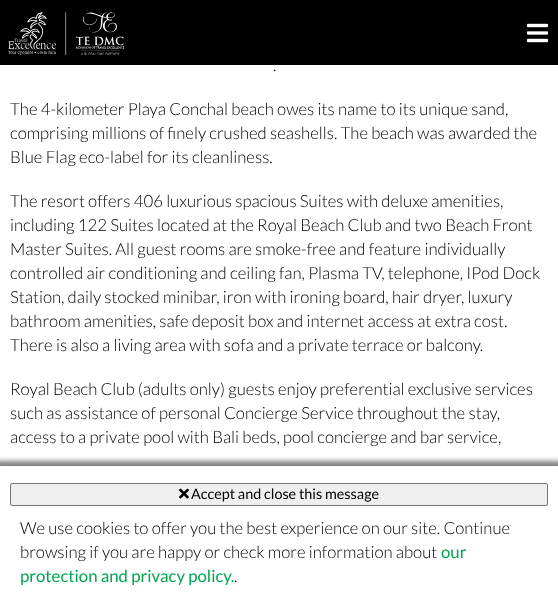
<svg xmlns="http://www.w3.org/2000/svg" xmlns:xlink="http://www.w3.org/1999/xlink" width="558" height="608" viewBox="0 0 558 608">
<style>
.cls-1{font:300 16.8px Lato;fill:#000000}
.cls-2{font:14.4px Lato;fill:#000000}
.cls-3{font:16.8px Lato;fill:#00a651}
</style>
<rect width="100%" height="100%" fill="#ffffff"/>
<rect fill="#000000" x="0" y="0" width="558" height="65"/>
<image xlink:href="image0.png" x="8" y="12" width="117" height="43"/>
<image xlink:href="image1.png" x="527" y="23" width="21" height="20"/>
<rect fill="#808080" filter="blur(2.5px)" x="-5" y="461" width="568" height="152"/>
<rect fill="#ffffff" x="0" y="466" width="558" height="142"/>
<rect fill="#efefef" stroke="#767676" x="10.5" y="483.5" width="537" height="22" rx="1.5"/>
<image xlink:href="image2.png" x="179" y="488" width="10" height="11"/>
<text class="cls-1" x="273" y="71">.</text>
<text class="cls-1"><tspan x="10" y="115">The 4-kilometer Playa Conchal beach owes its name to its unique sand,</tspan><tspan x="10" y="139">comprising millions of finely crushed seashells. The beach was awarded the</tspan><tspan x="10" y="163">Blue Flag eco-label for its cleanliness.</tspan></text>
<text class="cls-1"><tspan x="10" y="207">The resort offers 406 luxurious spacious Suites with deluxe amenities,</tspan><tspan x="10" y="231">including 122 Suites located at the Royal Beach Club and two Beach Front</tspan><tspan x="10" y="255">Master Suites. All guest rooms are smoke-free and feature individually</tspan><tspan x="10" y="279">controlled air conditioning and ceiling fan, Plasma TV, telephone, IPod Dock</tspan><tspan x="10" y="303">Station, daily stocked minibar, iron with ironing board, hair dryer, luxury</tspan><tspan x="10" y="327">bathroom amenities, safe deposit box and internet access at extra cost.</tspan><tspan x="10" y="351">There is also a living area with sofa and a private terrace or balcony.</tspan></text>
<text class="cls-1"><tspan x="10" y="395">Royal Beach Club (adults only) guests enjoy preferential exclusive services</tspan><tspan x="10" y="419">such as assistance of personal Concierge Service throughout the stay,</tspan><tspan x="10" y="443">access to a private pool with Bali beds, pool concierge and bar service,</tspan></text>
<text class="cls-2" x="191" y="499">Accept and close this message</text>
<text class="cls-1"><tspan x="20" y="534">We use cookies to offer you the best experience on our site. Continue</tspan><tspan x="20" y="558">browsing if you are happy or check more information about</tspan></text>
<text class="cls-3" x="441" y="558">our</text>
<text class="cls-3" x="20" y="582">protection and privacy policy.</text>
<text class="cls-1" x="234" y="582">.</text>
</svg>
